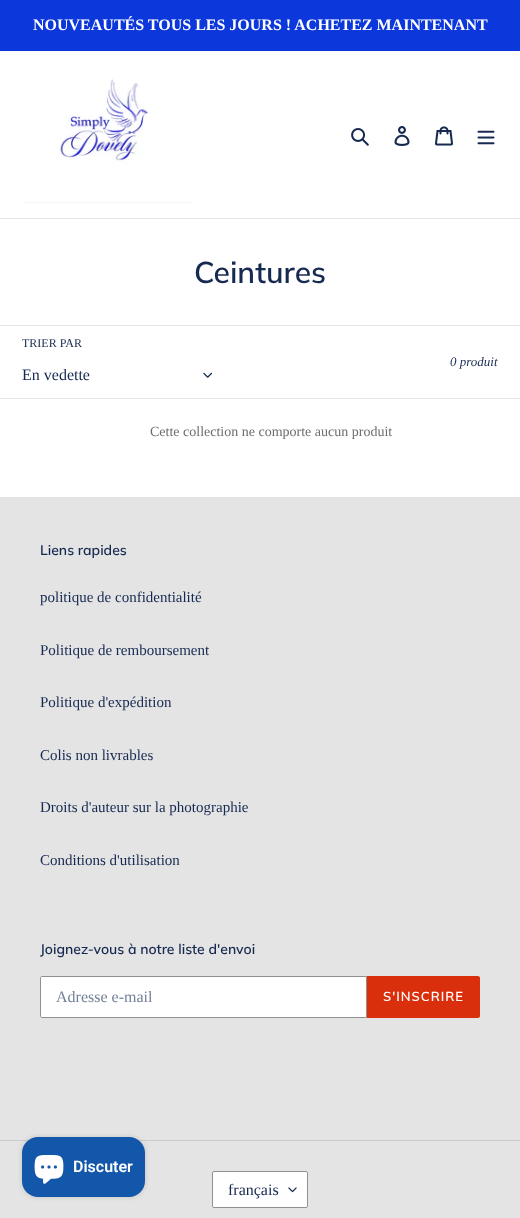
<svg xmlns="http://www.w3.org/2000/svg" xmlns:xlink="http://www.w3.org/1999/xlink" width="520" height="1218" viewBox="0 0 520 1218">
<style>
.cls-1{font:bold 16px Liberation Serif;fill:#ffffff}
.cls-2{font:600 30px Muli;fill:#162950}
.cls-3{font:12px Liberation Serif;fill:#162950}
.cls-4{font:16px Liberation Serif;fill:#162950}
.cls-5{font:italic 13px Liberation Serif;fill:#162950}
.cls-6{font:14px Liberation Serif;fill:#6d6d6d}
.cls-7{font:600 14px Muli;fill:#162950}
.cls-8{font:15px Liberation Serif;fill:#162950}
.cls-9{font:16px Liberation Serif;fill:#737f96}
.cls-10{font:600 13px Muli;letter-spacing:1px;fill:#ffffff}
.cls-11{font:600 16px Roboto;fill:#ffffff}
</style>
<rect width="100%" height="100%" fill="#ffffff"/>
<rect fill="#0c37da" x="0" y="0" width="520" height="51"/>
<rect fill="#e4e4e4" x="0" y="218" width="520" height="1"/>
<image xlink:href="image0.png" x="22" y="79" width="170" height="124"/>
<image xlink:href="image1.png" x="351" y="128" width="18" height="18"/>
<image xlink:href="image2.png" x="394" y="126" width="16" height="20"/>
<image xlink:href="image3.png" x="435" y="126" width="18" height="20"/>
<image xlink:href="image4.png" x="477" y="130" width="18" height="15"/>
<rect fill="#e4e4e4" x="0" y="325" width="520" height="1"/>
<rect fill="#e4e4e4" x="0" y="398" width="520" height="1"/>
<image xlink:href="image5.png" x="203" y="372" width="9" height="6"/>
<rect fill="#e4e4e4" x="0" y="497" width="520" height="721"/>
<path fill="#ffffff" stroke="#909090" d="M42 976.5H366.5V1017.5H42C41 1017.5 40.5 1017 40.5 1016V978C40.5 977 41 976.5 42 976.5Z"/>
<path fill="#da2f0c" d="M367 976H478C479 976 480 977 480 978V1016C480 1017 479 1018 478 1018H367Z"/>
<rect fill="#cbcbcb" x="0" y="1140" width="520" height="1"/>
<rect fill="#ffffff" x="212" y="1171" width="96" height="37" rx="2"/>
<image xlink:href="image6.png" x="288" y="1187" width="9" height="6"/>
<rect fill="none" stroke="#909090" x="212.5" y="1171.5" width="95" height="36" rx="1.5"/>
<rect fill="#000000" fill-opacity="0.15" filter="blur(2.5px)" x="22" y="1137" width="123" height="60" rx="16"/>
<rect fill="#1357aa" x="22" y="1137" width="123" height="60" rx="16"/>
<image xlink:href="image7.png" x="34" y="1155" width="30" height="29"/>
<text class="cls-1" x="33" y="30">NOUVEAUTÉS TOUS LES JOURS ! ACHETEZ MAINTENANT</text>
<text class="cls-2" x="194" y="283">Ceintures</text>
<text class="cls-3" x="22" y="347">TRIER PAR</text>
<text class="cls-4" x="22" y="380">En vedette</text>
<text class="cls-5" x="450" y="366">0 produit</text>
<text class="cls-6" x="150" y="436">Cette collection ne comporte aucun produit</text>
<text class="cls-7" x="40" y="555">Liens rapides</text>
<text class="cls-8" x="40" y="602">politique de confidentialité</text>
<text class="cls-8" x="40" y="655">Politique de remboursement</text>
<text class="cls-8" x="40" y="707">Politique d'expédition</text>
<text class="cls-8" x="40" y="760">Colis non livrables</text>
<text class="cls-8" x="40" y="812">Droits d'auteur sur la photographie</text>
<text class="cls-8" x="40" y="865">Conditions d'utilisation</text>
<text class="cls-7" x="40" y="954">Joignez-vous à notre liste d'envoi</text>
<text class="cls-9" x="56" y="1002">Adresse e-mail</text>
<text class="cls-10" x="383" y="1001">S'INSCRIRE</text>
<text class="cls-4" x="228" y="1195">français</text>
<text class="cls-11" x="73" y="1172">Discuter</text>
</svg>
